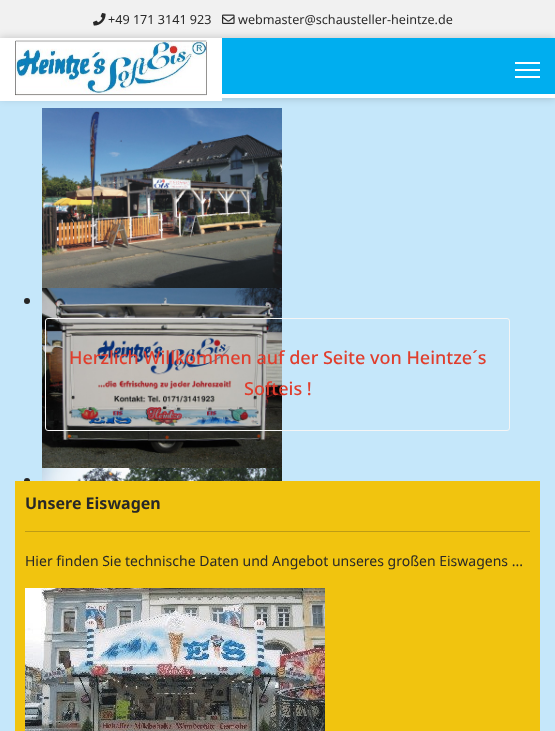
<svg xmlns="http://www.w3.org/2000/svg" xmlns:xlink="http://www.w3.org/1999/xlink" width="555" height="731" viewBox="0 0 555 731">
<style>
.cls-1{font:12.6px Noto Sans;fill:#282828}
.cls-2{font:500 18px Noto Sans;fill:#e03e2d}
.cls-3{font:bold 16px Noto Sans;fill:#282828}
.cls-4{font:14px Noto Sans;fill:#282828}
</style>
<rect width="100%" height="100%" fill="#f1f1f1"/>
<image xlink:href="image0.png" x="93" y="13" width="13" height="13"/>
<image xlink:href="image1.png" x="222" y="14" width="13" height="10"/>
<rect fill="#c5e7fa" x="0" y="98" width="555" height="633"/>
<image xlink:href="image3.png" x="42" y="108" width="240" height="180"/>
<rect fill="#000000" fill-opacity="0.2" filter="blur(4.5px)" x="0" y="38" width="555" height="60"/>
<rect fill="#00aeef" x="222" y="38" width="333" height="56"/>
<rect fill="#ffffff" x="222" y="94" width="333" height="4"/>
<rect fill="#ffffff" x="0" y="38" width="222" height="63"/>
<image xlink:href="image2.png" x="15" y="40" width="192" height="56"/>
<rect fill="#ffffff" x="515" y="62" width="25" height="2"/>
<rect fill="#ffffff" x="515" y="69" width="25" height="2"/>
<rect fill="#ffffff" x="515" y="76" width="25" height="2"/>
<circle fill="#252525" cx="27" cy="301" r="3"/>
<image xlink:href="image4.png" x="42" y="288" width="240" height="180"/>
<circle fill="#252525" cx="27" cy="481" r="3"/>
<image xlink:href="image5.png" x="42" y="468" width="240" height="13"/>
<rect fill="none" stroke="#f5f5f5" x="45.5" y="318.5" width="464" height="112" rx="2.5"/>
<rect fill="#f1c40f" x="15" y="481" width="525" height="250"/>
<rect fill="#be9c15" x="25" y="531" width="505" height="1"/>
<image xlink:href="image6.png" x="25" y="588" width="300" height="143"/>
<text class="cls-1" x="108" y="24">+49 171 3141 923</text>
<text class="cls-1" x="238" y="24">webmaster@schausteller-heintze.de</text>
<text class="cls-2" x="69" y="364">Herzlich Willkommen auf der Seite von Heintze´s</text>
<text class="cls-2" x="244" y="395">Softeis !</text>
<text class="cls-3" x="25" y="509">Unsere Eiswagen</text>
<text class="cls-4" x="25" y="566">Hier finden Sie technische Daten und Angebot unseres großen Eiswagens ...</text>
</svg>
